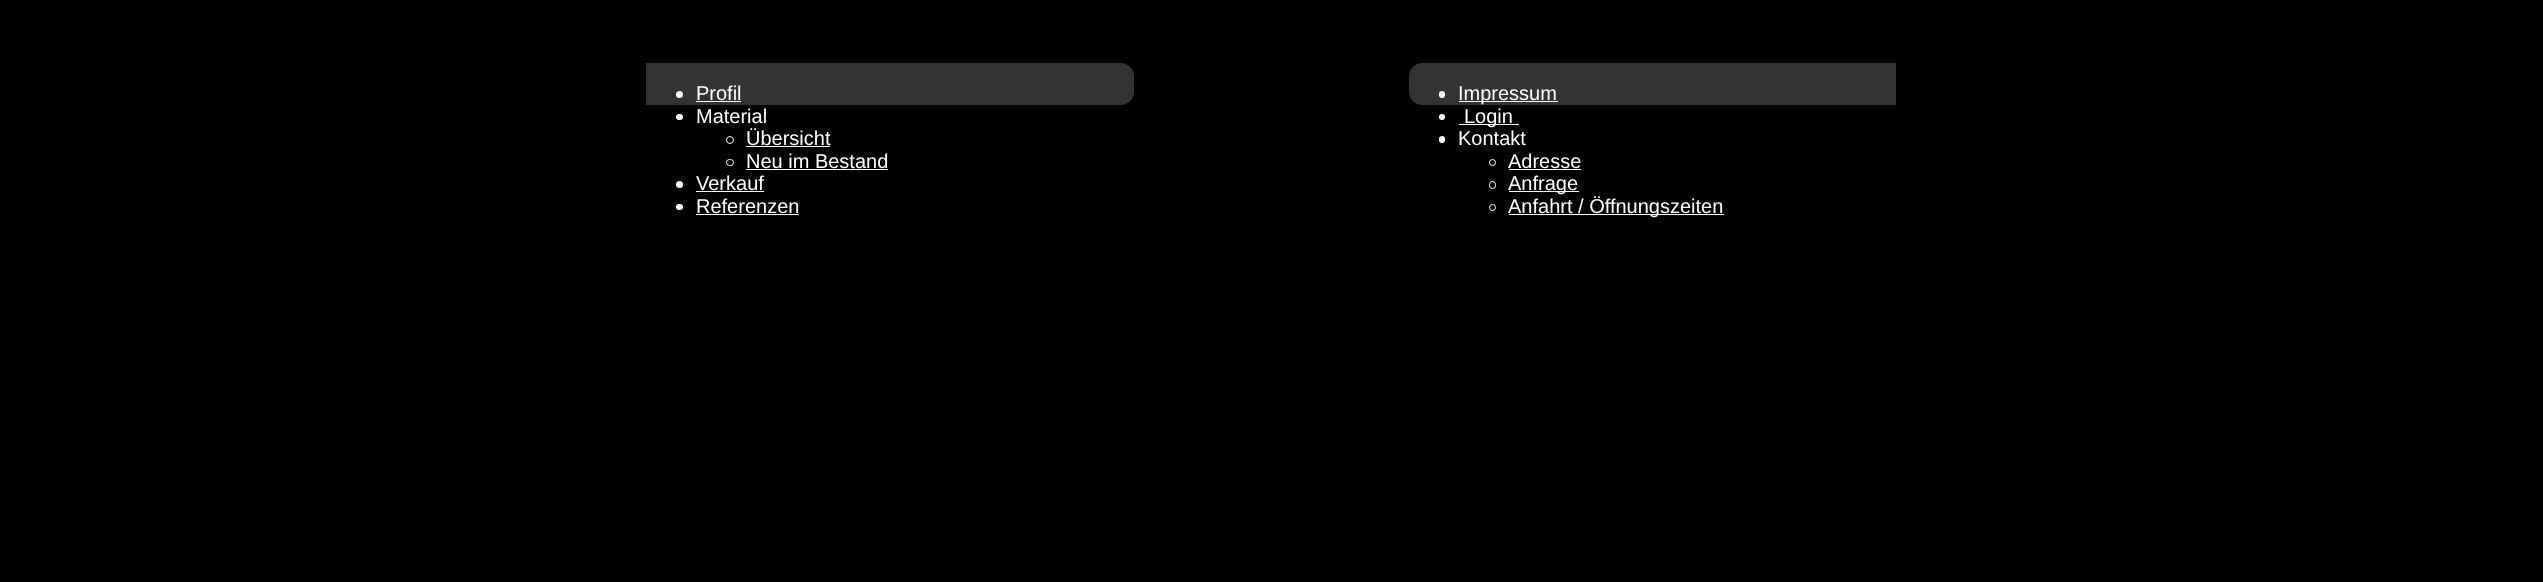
<svg xmlns="http://www.w3.org/2000/svg" xmlns:xlink="http://www.w3.org/1999/xlink" width="2543" height="582" viewBox="0 0 2543 582">
<style>
.cls-1{font:20px Liberation Sans;fill:#ffffff}
</style>
<rect width="100%" height="100%" fill="#000000"/>
<path fill="#333333" d="M646 63H1121C1128 63 1134 69 1134 76V92C1134 99 1128 105 1121 105H646Z"/>
<circle fill="#ffffff" cx="679.5" cy="94.5" r="3.5"/>
<rect fill="#ffffff" x="696" y="101" width="45" height="1"/>
<rect fill="#ffffff" x="676" y="114" width="7" height="6" rx="3"/>
<circle fill="none" stroke="#ffffff" cx="730" cy="140" r="3.5"/>
<rect fill="#ffffff" x="746" y="146" width="84" height="1"/>
<rect fill="none" stroke="#ffffff" x="726.5" y="159.5" width="7" height="6" rx="3"/>
<rect fill="#ffffff" x="746" y="169" width="142" height="1"/>
<circle fill="#ffffff" cx="679.5" cy="184.5" r="3.5"/>
<rect fill="#ffffff" x="696" y="191" width="68" height="1"/>
<rect fill="#ffffff" x="676" y="204" width="7" height="6" rx="3"/>
<rect fill="#ffffff" x="696" y="214" width="103" height="1"/>
<path fill="#333333" d="M1422 63H1896V105H1422C1415 105 1409 99 1409 92V76C1409 69 1415 63 1422 63Z"/>
<rect fill="#ffffff" x="1439" y="91" width="6" height="7" rx="3"/>
<rect fill="#ffffff" x="1459" y="101" width="99" height="1"/>
<circle fill="#ffffff" cx="1442" cy="117" r="3"/>
<rect fill="#ffffff" x="1459" y="124" width="60" height="1"/>
<rect fill="#ffffff" x="1439" y="136" width="6" height="7" rx="3"/>
<circle fill="none" stroke="#ffffff" cx="1492.5" cy="162.5" r="3"/>
<rect fill="#ffffff" x="1509" y="169" width="72" height="1"/>
<rect fill="none" stroke="#ffffff" x="1489.5" y="181.5" width="6" height="7" rx="3"/>
<rect fill="#ffffff" x="1509" y="191" width="70" height="1"/>
<circle fill="none" stroke="#ffffff" cx="1492.5" cy="207.5" r="3"/>
<rect fill="#ffffff" x="1509" y="214" width="215" height="1"/>
<text class="cls-1"><tspan x="696" y="100">Profil</tspan><tspan x="696" y="123">Material</tspan></text>
<text class="cls-1"><tspan x="746" y="145">Übersicht</tspan><tspan x="746" y="168">Neu im Bestand</tspan></text>
<text class="cls-1"><tspan x="696" y="190">Verkauf</tspan><tspan x="696" y="213">Referenzen</tspan></text>
<text class="cls-1" x="1458" y="100">Impressum</text>
<text class="cls-1" x="1464" y="123">Login</text>
<text class="cls-1" x="1458" y="145">Kontakt</text>
<text class="cls-1"><tspan x="1508" y="168">Adresse</tspan><tspan x="1508" y="190">Anfrage</tspan><tspan x="1508" y="213">Anfahrt / Öffnungszeiten</tspan></text>
</svg>
